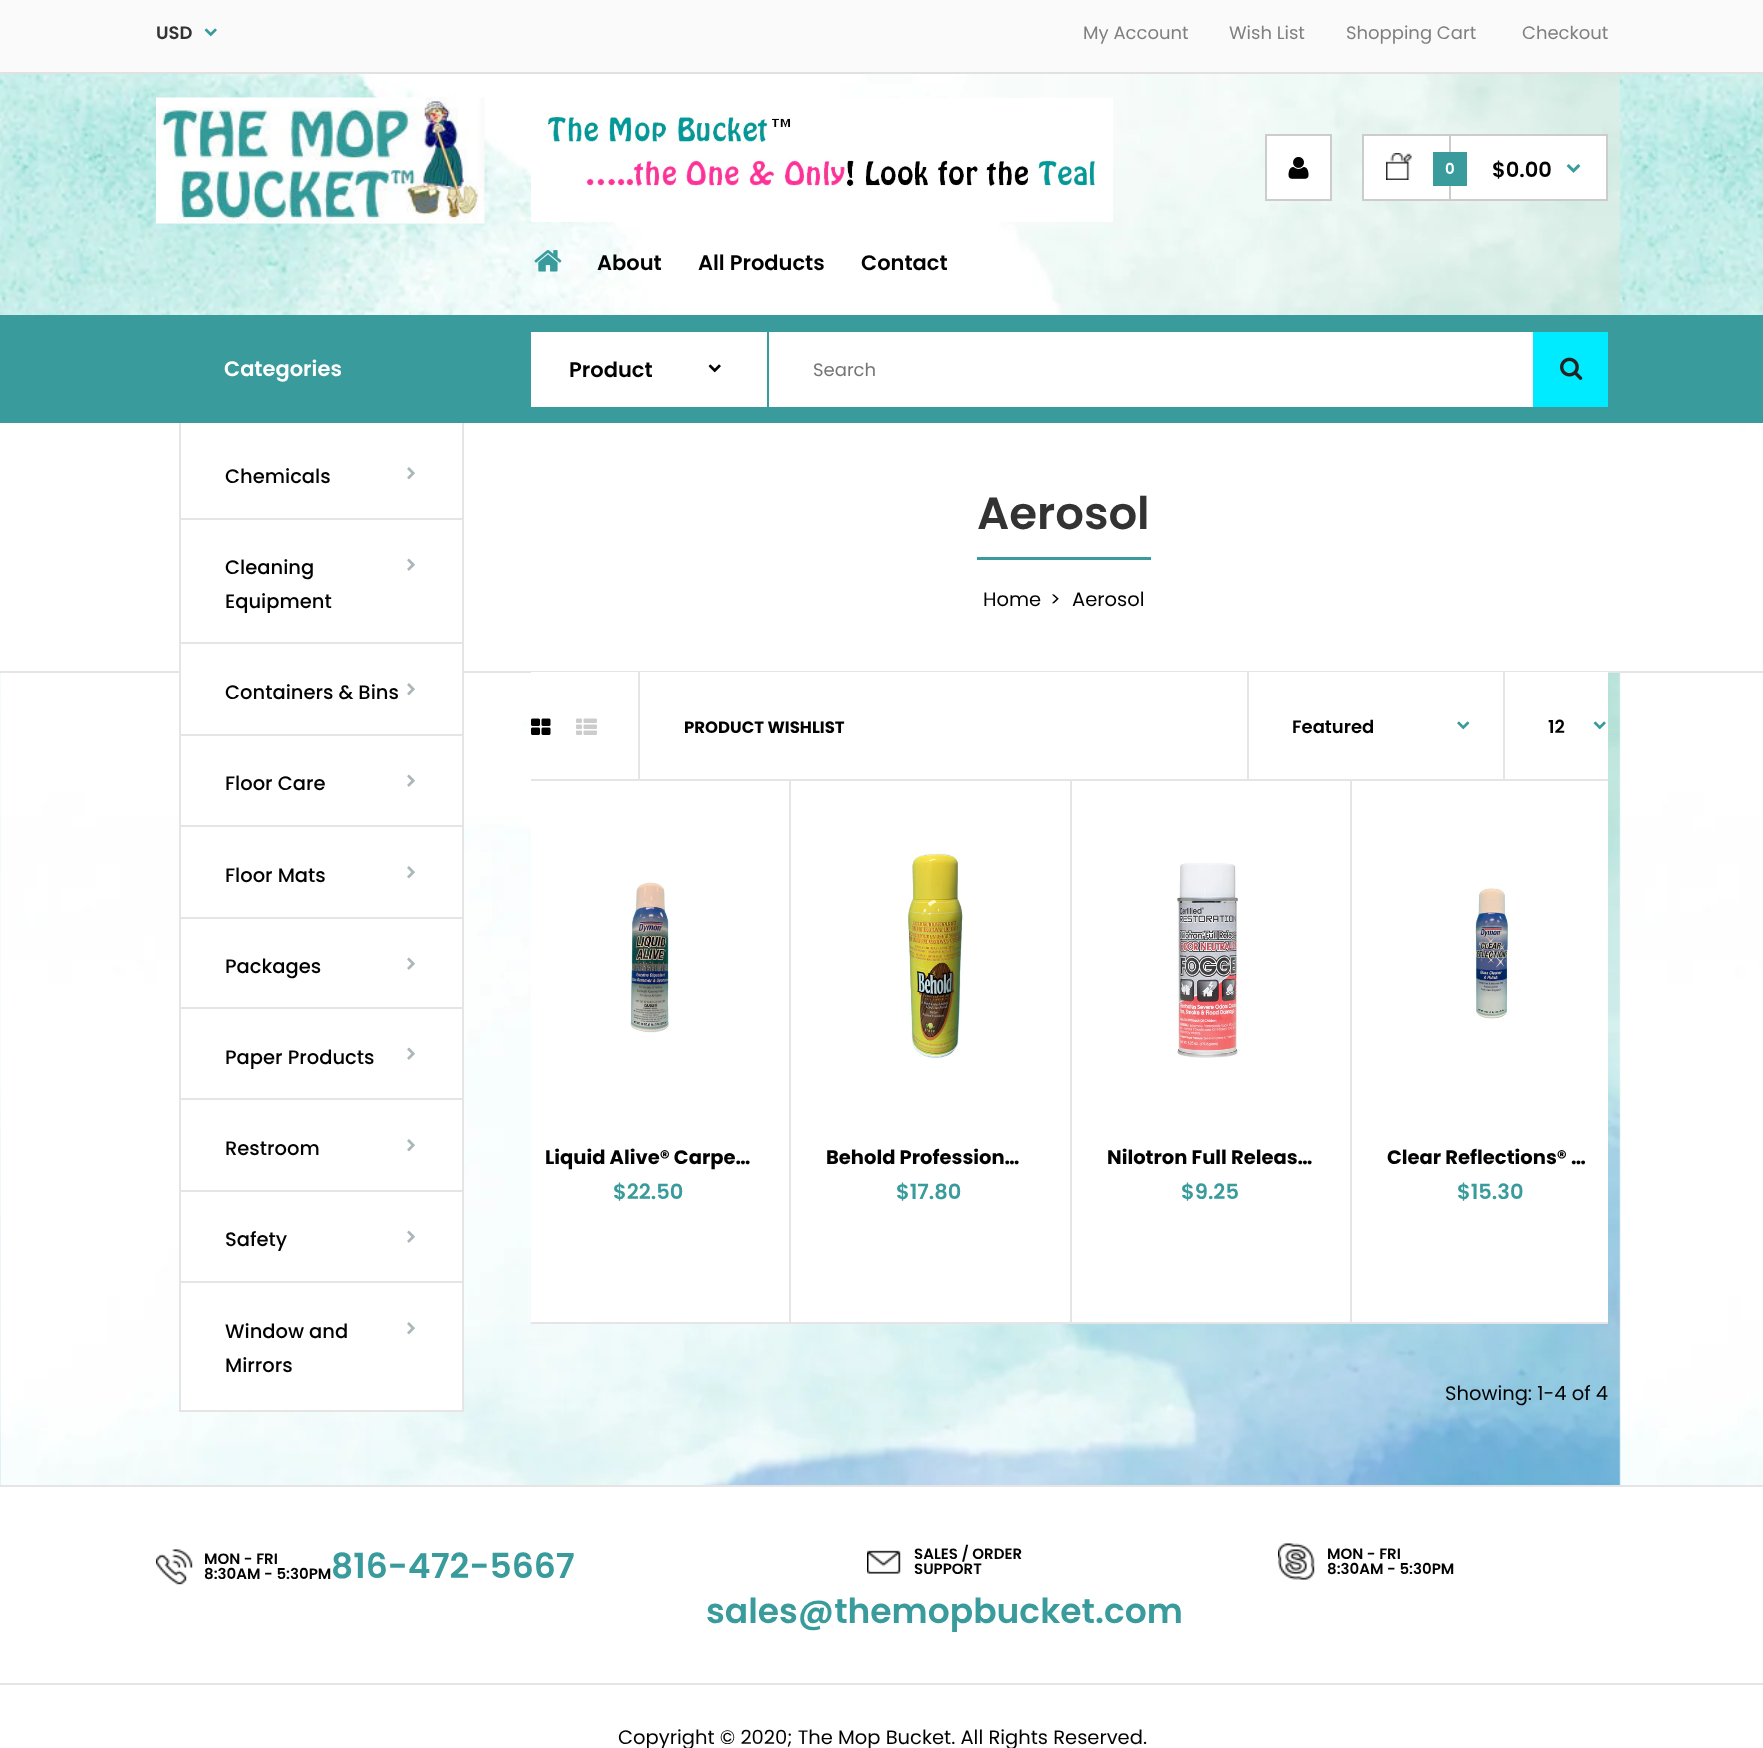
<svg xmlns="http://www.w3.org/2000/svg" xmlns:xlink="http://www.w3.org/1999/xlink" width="1763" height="1748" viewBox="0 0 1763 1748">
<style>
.cls-1{font:600 18px Poppins;fill:#333333}
.cls-2{font:18px Poppins;fill:#808080}
.cls-3{font:600 15px Poppins;fill:#ffffff}
.cls-4{font:600 21px Poppins;fill:#020202}
.cls-5{font:600 21px Poppins;fill:#ffffff}
.cls-6{font:500 19.5px Poppins;fill:#020202}
.cls-7{font:18px Poppins;fill:#757575}
.cls-8{font:600 45px Poppins;fill:#333333}
.cls-9{font:19.5px Poppins;fill:#020202}
.cls-10{font:bold 16.5px Poppins;fill:#020202}
.cls-11{font:600 18px Poppins;fill:#020202}
.cls-12{font:bold 19.5px Poppins;fill:#020202}
.cls-13{font:600 21px Poppins;fill:#399b9c}
.cls-14{font:600 15px Poppins;fill:#020202}
.cls-15{font:600 34.5px Poppins;fill:#399b9c}
</style>
<rect width="100%" height="100%" fill="#ffffff"/>
<image xlink:href="image0.png" x="0" y="74" width="1763" height="1411"/>
<rect fill="#fafafa" x="0" y="0" width="1763" height="72"/>
<rect fill="#e1e1e1" x="0" y="72" width="1763" height="2"/>
<image xlink:href="image1.png" x="204" y="28" width="13" height="9"/>
<image xlink:href="image2.png" x="156" y="97" width="329" height="127"/>
<rect fill="#ffffff" stroke="#cccccc" stroke-width="2" x="1266" y="135" width="65" height="65"/>
<image xlink:href="image3.png" x="1288" y="157" width="21" height="22"/>
<rect fill="#ffffff" stroke="#cccccc" stroke-width="2" x="1363" y="135" width="244" height="65"/>
<image xlink:href="image4.png" x="1386" y="153" width="26" height="27"/>
<rect fill="#cccccc" x="1449" y="135" width="2" height="65"/>
<rect fill="#399b9c" x="1433" y="152" width="34" height="34"/>
<image xlink:href="image5.png" x="1566" y="164" width="15" height="9"/>
<rect fill="#ffffff" x="531" y="98" width="582" height="124"/>
<image xlink:href="image6.png" x="546" y="112" width="550" height="76"/>
<image xlink:href="image7.png" x="534" y="250" width="28" height="22"/>
<rect fill="#399b9c" x="0" y="315" width="1763" height="108"/>
<rect fill="#e5e5e5" x="0" y="671" width="1763" height="2"/>
<rect fill="#ffffff" x="181" y="671" width="281" height="739"/>
<rect fill="#ffffff" x="0" y="423" width="1740" height="248"/>
<rect fill="#e5e5e5" x="462" y="423" width="2" height="989"/>
<rect fill="#e5e5e5" x="179" y="1410" width="285" height="2"/>
<rect fill="#e5e5e5" x="179" y="423" width="2" height="989"/>
<image xlink:href="image8.png" x="407" y="467" width="8" height="13"/>
<rect fill="#e5e5e5" x="180" y="518" width="282" height="2"/>
<image xlink:href="image9.png" x="407" y="558" width="8" height="13"/>
<rect fill="#e5e5e5" x="180" y="642" width="282" height="2"/>
<image xlink:href="image8.png" x="407" y="683" width="8" height="13"/>
<rect fill="#e5e5e5" x="180" y="734" width="282" height="2"/>
<image xlink:href="image9.png" x="407" y="774" width="8" height="13"/>
<rect fill="#e5e5e5" x="180" y="825" width="282" height="2"/>
<image xlink:href="image8.png" x="407" y="866" width="8" height="13"/>
<rect fill="#e5e5e5" x="180" y="917" width="282" height="2"/>
<image xlink:href="image9.png" x="407" y="957" width="8" height="13"/>
<rect fill="#e5e5e5" x="180" y="1007" width="282" height="2"/>
<image xlink:href="image9.png" x="407" y="1047" width="8" height="13"/>
<rect fill="#e5e5e5" x="180" y="1098" width="282" height="2"/>
<image xlink:href="image8.png" x="407" y="1139" width="8" height="13"/>
<rect fill="#e5e5e5" x="180" y="1190" width="282" height="2"/>
<image xlink:href="image9.png" x="407" y="1230" width="8" height="13"/>
<rect fill="#e5e5e5" x="180" y="1281" width="282" height="2"/>
<image xlink:href="image8.png" x="407" y="1322" width="8" height="13"/>
<rect fill="#ffffff" x="531" y="332" width="1002" height="75"/>
<rect fill="#359e9a" x="767" y="332" width="2" height="75"/>
<image xlink:href="image10.png" x="708" y="364" width="13" height="9"/>
<rect fill="#00ebff" x="1533" y="332" width="75" height="75"/>
<image xlink:href="image11.png" x="1560" y="357" width="23" height="23"/>
<rect fill="#399b9c" x="977" y="557" width="174" height="3"/>
<rect fill="#ffffff" x="531" y="672" width="1077" height="107"/>
<image xlink:href="image12.png" x="531" y="718" width="20" height="17"/>
<image xlink:href="image13.png" x="576" y="718" width="21" height="17"/>
<rect fill="#e5e5e5" x="638" y="672" width="2" height="107"/>
<rect fill="#e5e5e5" x="1247" y="672" width="2" height="107"/>
<image xlink:href="image14.png" x="1457" y="721" width="13" height="9"/>
<rect fill="#e5e5e5" x="1503" y="672" width="2" height="107"/>
<image xlink:href="image15.png" x="1593" y="721" width="13" height="9"/>
<rect fill="#ffffff" x="531" y="781" width="1077" height="541"/>
<rect fill="#e5e5e5" x="531" y="779" width="1077" height="2"/>
<image xlink:href="image16.png" x="630" y="882" width="39" height="151"/>
<rect fill="#e5e5e5" x="531" y="1322" width="1077" height="2"/>
<rect fill="#e5e5e5" x="789" y="780" width="2" height="543"/>
<image xlink:href="image17.png" x="907" y="853" width="57" height="206"/>
<rect fill="#e5e5e5" x="1070" y="780" width="2" height="543"/>
<image xlink:href="image18.png" x="1177" y="862" width="62" height="196"/>
<rect fill="#e5e5e5" x="1350" y="780" width="2" height="543"/>
<image xlink:href="image19.png" x="1475" y="887" width="35" height="132"/>
<rect fill="#e5e5e5" x="0" y="1485" width="1763" height="2"/>
<image xlink:href="image20.png" x="156" y="1549" width="37" height="36"/>
<image xlink:href="image21.png" x="867" y="1550" width="34" height="24"/>
<image xlink:href="image22.png" x="1278" y="1543" width="37" height="37"/>
<rect fill="#e5e5e5" x="0" y="1683" width="1763" height="2"/>
<text class="cls-1" x="156" y="39">USD</text>
<text class="cls-2" x="1083" y="39">My Account</text>
<text class="cls-2" x="1229" y="39">Wish List</text>
<text class="cls-2" x="1346" y="39">Shopping Cart</text>
<text class="cls-2" x="1522" y="39">Checkout</text>
<text class="cls-3" x="1445" y="174">0</text>
<text class="cls-4" x="1492" y="177">$0.00</text>
<text class="cls-4" x="597" y="270">About</text>
<text class="cls-4" x="698" y="270">All Products</text>
<text class="cls-4" x="861" y="270">Contact</text>
<text class="cls-5" x="224" y="376">Categories</text>
<text class="cls-6" x="225" y="483">Chemicals</text>
<text class="cls-6"><tspan x="225" y="574">Cleaning</tspan><tspan x="225" y="608">Equipment</tspan></text>
<text class="cls-6" x="225" y="699">Containers &amp; Bins</text>
<text class="cls-6" x="225" y="790">Floor Care</text>
<text class="cls-6" x="225" y="882">Floor Mats</text>
<text class="cls-6" x="225" y="973">Packages</text>
<text class="cls-6" x="225" y="1064">Paper Products</text>
<text class="cls-6" x="225" y="1155">Restroom</text>
<text class="cls-6" x="225" y="1246">Safety</text>
<text class="cls-6"><tspan x="225" y="1338">Window and</tspan><tspan x="225" y="1372">Mirrors</tspan></text>
<text class="cls-4" x="569" y="377">Product</text>
<text class="cls-7" x="813" y="376">Search</text>
<text class="cls-8" x="977" y="529">Aerosol</text>
<text class="cls-9" x="983" y="606">Home</text>
<text class="cls-9" x="1050" y="606">&gt;</text>
<text class="cls-9" x="1072" y="606">Aerosol</text>
<text class="cls-10" x="684" y="733">PRODUCT WISHLIST</text>
<text class="cls-11" x="1292" y="733">Featured</text>
<text class="cls-11" x="1548" y="733">12</text>
<text class="cls-12" x="545" y="1164">Liquid Alive® Carpe…</text>
<text class="cls-13" x="613" y="1199">$22.50</text>
<text class="cls-12" x="826" y="1164">Behold Profession…</text>
<text class="cls-13" x="896" y="1199">$17.80</text>
<text class="cls-12" x="1107" y="1164">Nilotron Full Releas…</text>
<text class="cls-13" x="1181" y="1199">$9.25</text>
<text class="cls-12" x="1387" y="1164">Clear Reflections® …</text>
<text class="cls-13" x="1457" y="1199">$15.30</text>
<text class="cls-9" x="1445" y="1400">Showing: 1-4 of 4</text>
<text class="cls-14"><tspan x="204" y="1564">MON - FRI</tspan><tspan x="204" y="1579">8:30AM - 5:30PM</tspan></text>
<text class="cls-15" x="331" y="1578">816-472-5667</text>
<text class="cls-14"><tspan x="914" y="1559">SALES / ORDER</tspan><tspan x="914" y="1574">SUPPORT</tspan></text>
<text class="cls-15" x="706" y="1623">sales@themopbucket.com</text>
<text class="cls-14"><tspan x="1327" y="1559">MON - FRI</tspan><tspan x="1327" y="1574">8:30AM - 5:30PM</tspan></text>
<text class="cls-9" x="618" y="1744">Copyright © 2020; The Mop Bucket. All Rights Reserved.</text>
</svg>
